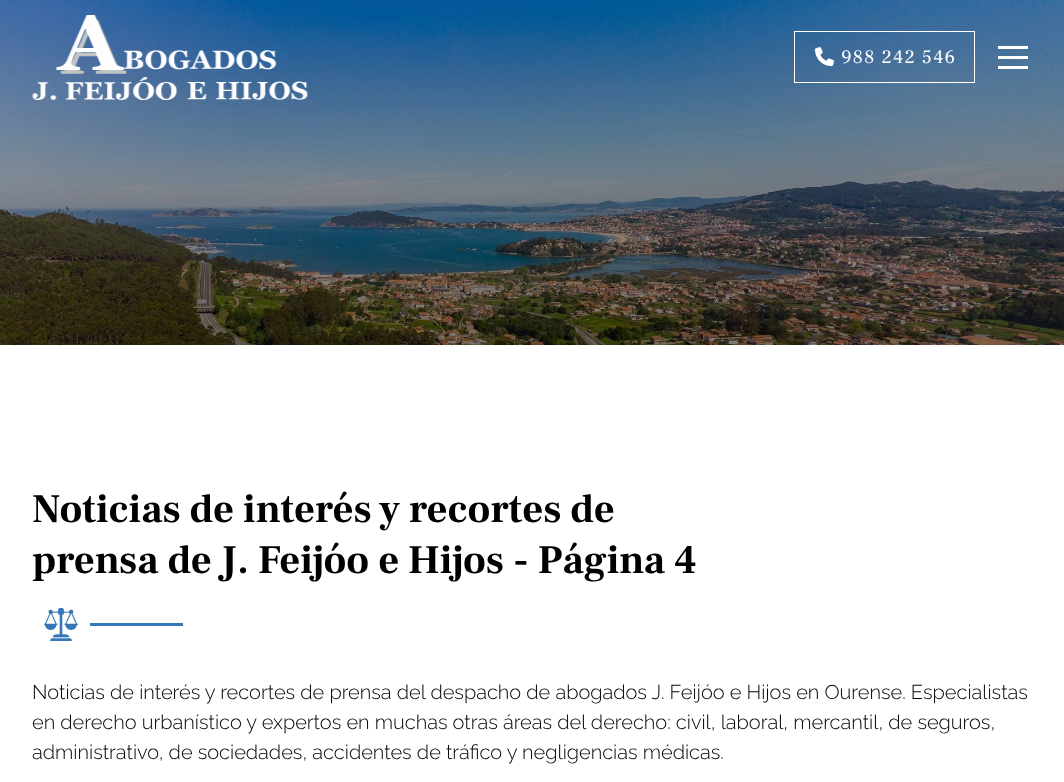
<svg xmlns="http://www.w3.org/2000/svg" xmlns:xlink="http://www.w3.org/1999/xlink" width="1064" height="782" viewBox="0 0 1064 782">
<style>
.cls-1{font:19px Frank Ruhl Libre;letter-spacing:1.25px;fill:#ffffff}
.cls-2{font:bold 40.4px Frank Ruhl Libre;fill:#000000}
.cls-3{font:300 20px Raleway;fill:#000000}
</style>
<rect width="100%" height="100%" fill="#ffffff"/>
<image xlink:href="image2.png" x="0" y="0" width="1064" height="345"/>
<image xlink:href="image0.png" x="32" y="15" width="276" height="85"/>
<rect fill="none" stroke="#ffffff" x="794.5" y="31.5" width="180" height="51"/>
<image xlink:href="image1.png" x="815" y="47" width="19" height="20"/>
<rect fill="#ffffff" x="998" y="46" width="30" height="3"/>
<rect fill="#ffffff" x="998" y="56" width="30" height="3"/>
<rect fill="#ffffff" x="998" y="66" width="30" height="3"/>
<image xlink:href="image3.png" x="44" y="608" width="34" height="33"/>
<rect fill="#3577b7" x="90" y="623" width="93" height="3"/>
<text class="cls-1" x="841" y="63">988 242 546</text>
<text class="cls-2"><tspan x="32" y="522">Noticias de interés y recortes de</tspan><tspan x="32" y="573">prensa de J. Feijóo e Hijos - Página 4</tspan></text>
<text class="cls-3"><tspan x="32" y="699">Noticias de interés y recortes de prensa del despacho de abogados J. Feijóo e Hijos en Ourense. Especialistas</tspan><tspan x="32" y="729">en derecho urbanístico y expertos en muchas otras áreas del derecho: civil, laboral, mercantil, de seguros,</tspan><tspan x="32" y="759">administrativo, de sociedades, accidentes de tráfico y negligencias médicas.</tspan></text>
</svg>
